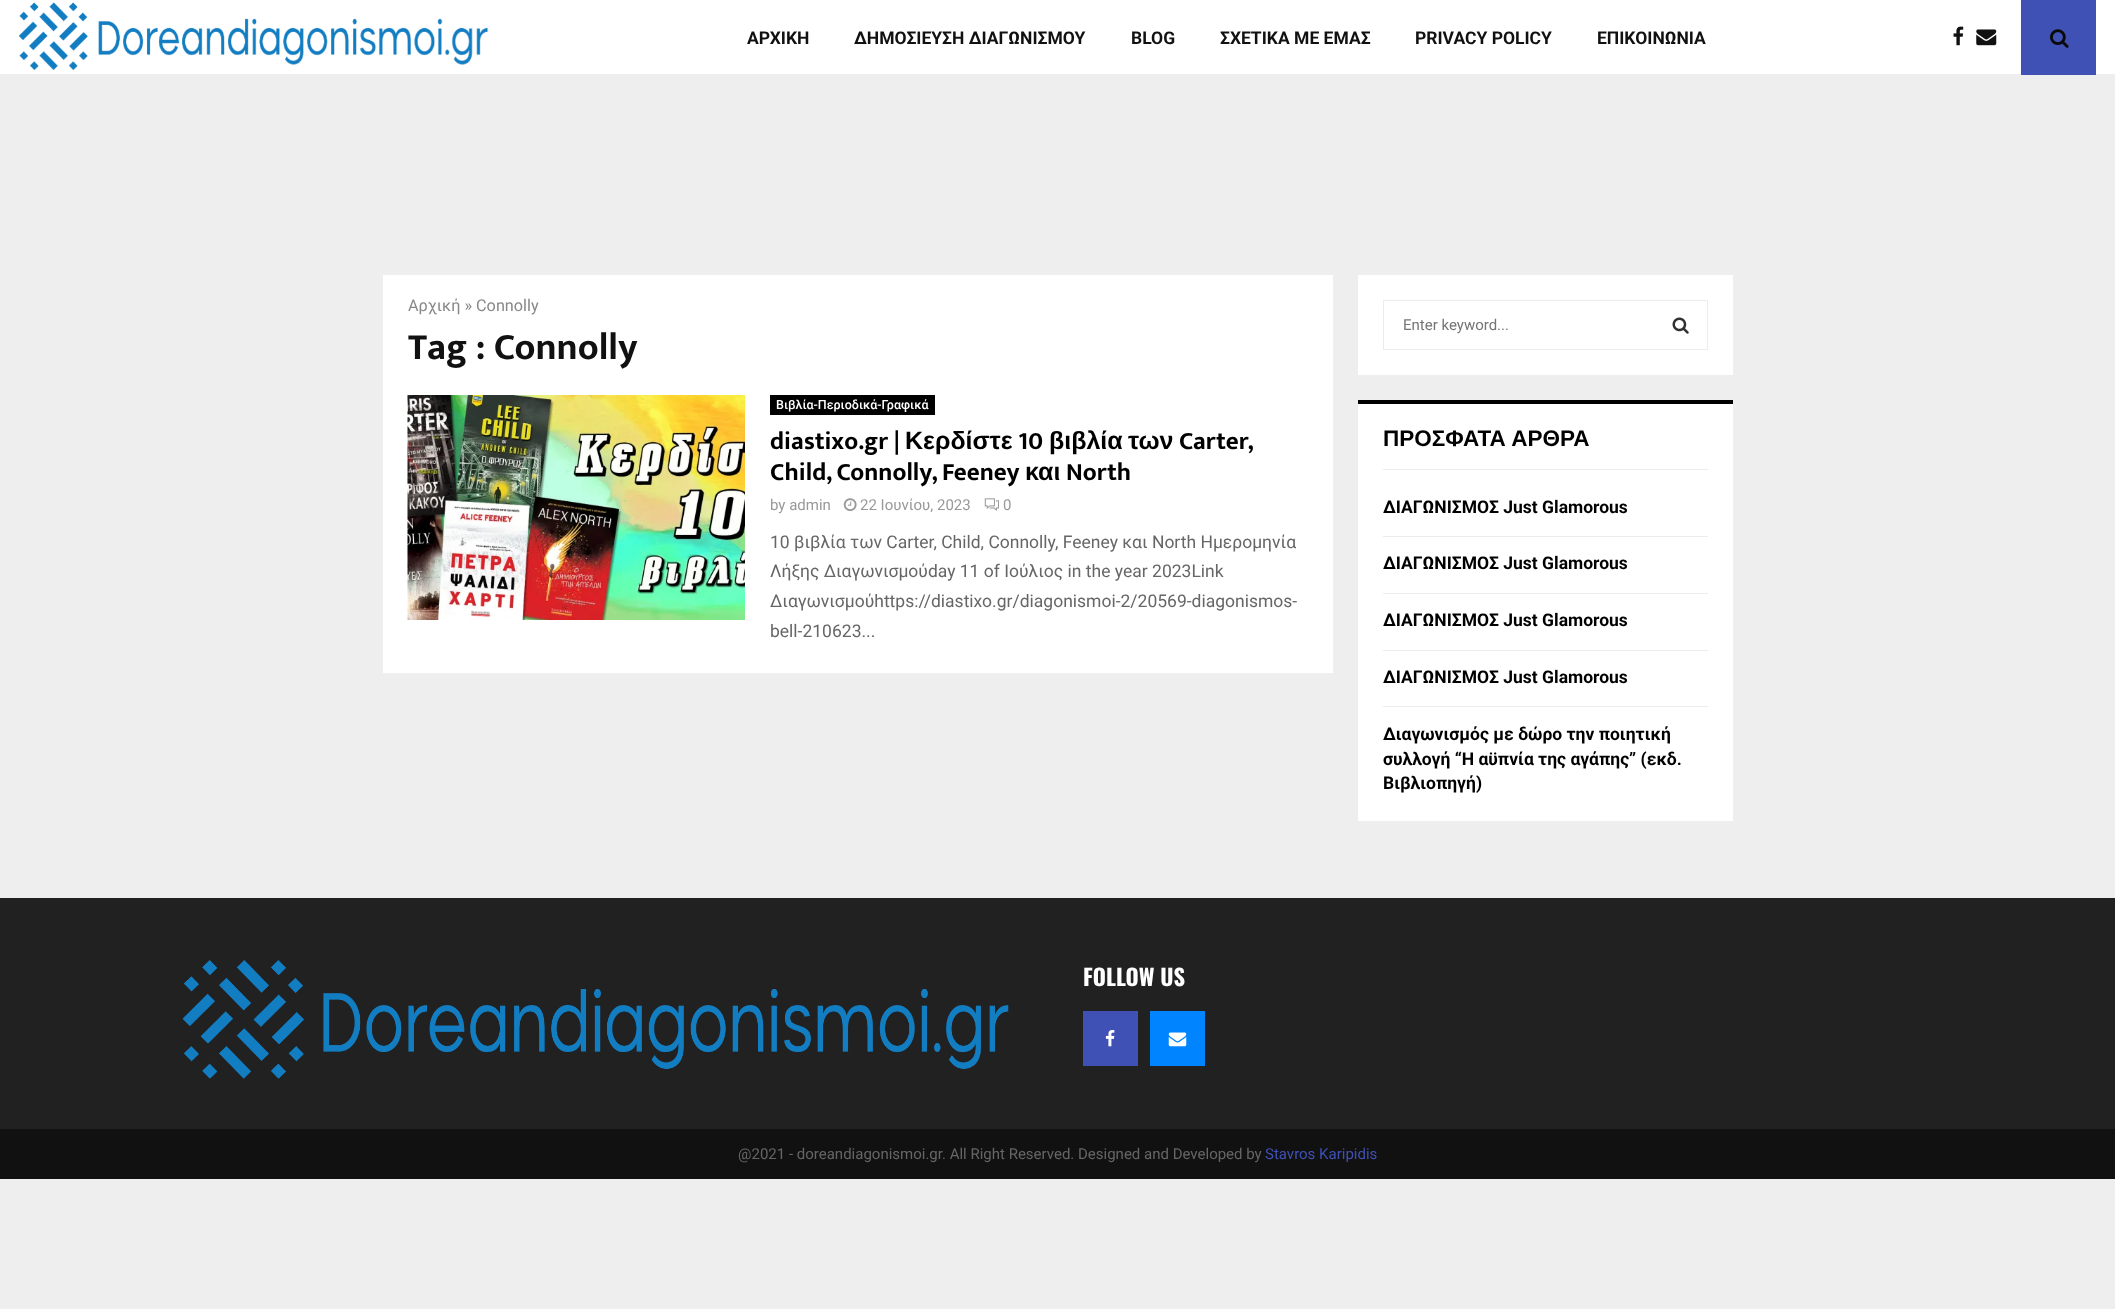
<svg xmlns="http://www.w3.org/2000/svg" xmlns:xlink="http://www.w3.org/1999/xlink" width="2115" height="1309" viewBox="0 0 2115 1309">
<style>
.cls-1{font:bold 17.5px Roboto;fill:#111111}
.cls-2{font:16.25px Roboto;fill:#888888}
.cls-3{font:bold 37.5px Mukta Vaani;fill:#111111}
.cls-4{font:500 12.5px Roboto;fill:#ffffff}
.cls-5{font:bold 25px Mukta Vaani;fill:#000000}
.cls-6{font:bold 25px Liberation Sans;fill:#000000}
.cls-7{font:15px Roboto;fill:#999999}
.cls-8{font:17.5px Roboto;fill:#666666}
.cls-9{font:15px Roboto;fill:#757575}
.cls-10{font:bold 22.5px Liberation Sans;fill:#000000}
.cls-11{font:bold 17.5px Roboto;fill:#000000}
.cls-12{font:bold 22.5px Oswald;fill:#ffffff}
.cls-13{font:15px Roboto;fill:#666666}
.cls-14{font:15px Roboto;fill:#3f51b5}
</style>
<rect width="100%" height="100%" fill="#eeeeee"/>
<rect fill="#ffffff" x="0" y="0" width="2115" height="74"/>
<image xlink:href="image0.png" x="19" y="2" width="470" height="68"/>
<image xlink:href="image1.png" x="1953" y="26" width="11" height="20"/>
<image xlink:href="image2.png" x="1976" y="29" width="21" height="17"/>
<rect fill="#3f51b5" x="2021" y="0" width="75" height="75"/>
<image xlink:href="image3.png" x="2050" y="29" width="19" height="19"/>
<rect fill="#ffffff" x="383" y="275" width="950" height="398"/>
<image xlink:href="image4.png" x="407" y="395" width="338" height="225"/>
<rect fill="#000000" x="770" y="395" width="165" height="20"/>
<image xlink:href="image5.png" x="843" y="498" width="14" height="13"/>
<image xlink:href="image6.png" x="984" y="498" width="15" height="13"/>
<rect fill="#ffffff" x="1358" y="275" width="375" height="100"/>
<rect fill="none" stroke="#ececec" x="1383.5" y="300.5" width="324" height="49"/>
<image xlink:href="image7.png" x="1672" y="317" width="17" height="17"/>
<rect fill="#ffffff" x="1358" y="404" width="375" height="417"/>
<rect fill="#ececec" x="1383" y="469" width="325" height="1"/>
<rect fill="#000000" x="1358" y="400" width="375" height="4"/>
<rect fill="#ececec" x="1383" y="536" width="325" height="1"/>
<rect fill="#ececec" x="1383" y="593" width="325" height="1"/>
<rect fill="#ececec" x="1383" y="650" width="325" height="1"/>
<rect fill="#ececec" x="1383" y="706" width="325" height="1"/>
<rect fill="#212121" x="0" y="898" width="2115" height="231"/>
<image xlink:href="image8.png" x="182" y="960" width="827" height="119"/>
<rect fill="#3f51b5" x="1083" y="1011" width="55" height="55"/>
<image xlink:href="image9.png" x="1105" y="1030" width="10" height="17"/>
<rect fill="#0084ff" x="1150" y="1011" width="55" height="55"/>
<image xlink:href="image10.png" x="1168" y="1032" width="19" height="15"/>
<rect fill="#111111" x="0" y="1129" width="2115" height="50"/>
<text class="cls-1" x="747" y="44">ΑΡΧΙΚΗ</text>
<text class="cls-1" x="854" y="44">ΔΗΜΟΣΙΕΥΣΗ ΔΙΑΓΩΝΙΣΜΟΥ</text>
<text class="cls-1" x="1131" y="44">BLOG</text>
<text class="cls-1" x="1220" y="44">ΣΧΕΤΙΚΑ ΜΕ ΕΜΑΣ</text>
<text class="cls-1" x="1415" y="44">PRIVACY POLICY</text>
<text class="cls-1" x="1597" y="44">ΕΠΙΚΟΙΝΩΝΙΑ</text>
<text class="cls-2" x="408" y="311">Αρχική » Connolly</text>
<text class="cls-3" x="408" y="359">Tag : Connolly</text>
<text class="cls-4" x="776" y="409">Βιβλία-Περιοδικά-Γραφικά</text>
<text class="cls-5" x="770" y="449">diastixo.gr |</text>
<text class="cls-6" x="905" y="449">Κερδίστε</text>
<text class="cls-5" x="1018" y="449">10</text>
<text class="cls-6" x="1049" y="449">βιβλία</text>
<text class="cls-6" x="1128" y="449">των</text>
<text class="cls-5" x="1179" y="449">Carter,</text>
<text class="cls-5" x="770" y="480">Child, Connolly, Feeney</text>
<text class="cls-6" x="1025" y="480">και</text>
<text class="cls-5" x="1066" y="480">North</text>
<text class="cls-7" x="770" y="510">by admin</text>
<text class="cls-7" x="860" y="510">22 Ιουνίου, 2023</text>
<text class="cls-7" x="1003" y="510">0</text>
<text class="cls-8"><tspan x="770" y="548">10 βιβλία των Carter, Child, Connolly, Feeney και North Ημερομηνία</tspan><tspan x="770" y="577">Λήξης Διαγωνισμούday 11 of Ιούλιος in the year 2023Link</tspan><tspan x="770" y="607">Διαγωνισμούhttps://diastixo.gr/diagonismoi-2/20569-diagonismos-</tspan><tspan x="770" y="637">bell-210623...</tspan></text>
<text class="cls-9" x="1403" y="330">Enter keyword...</text>
<text class="cls-10" x="1383" y="446">ΠΡΟΣΦΑΤΑ ΑΡΘΡΑ</text>
<text class="cls-11" x="1383" y="513">ΔΙΑΓΩΝΙΣΜΟΣ Just Glamorous</text>
<text class="cls-11" x="1383" y="569">ΔΙΑΓΩΝΙΣΜΟΣ Just Glamorous</text>
<text class="cls-11" x="1383" y="626">ΔΙΑΓΩΝΙΣΜΟΣ Just Glamorous</text>
<text class="cls-11" x="1383" y="683">ΔΙΑΓΩΝΙΣΜΟΣ Just Glamorous</text>
<text class="cls-11"><tspan x="1383" y="740">Διαγωνισμός με δώρο την ποιητική</tspan><tspan x="1383" y="765">συλλογή “Η αϋπνία της αγάπης” (εκδ.</tspan><tspan x="1383" y="789">Βιβλιοπηγή)</tspan></text>
<text class="cls-12" x="1083" y="986">FOLLOW US</text>
<text class="cls-13" x="738" y="1159">@2021 - doreandiagonismoi.gr. All Right Reserved. Designed and Developed by</text>
<text class="cls-14" x="1265" y="1159">Stavros Karipidis</text>
</svg>
